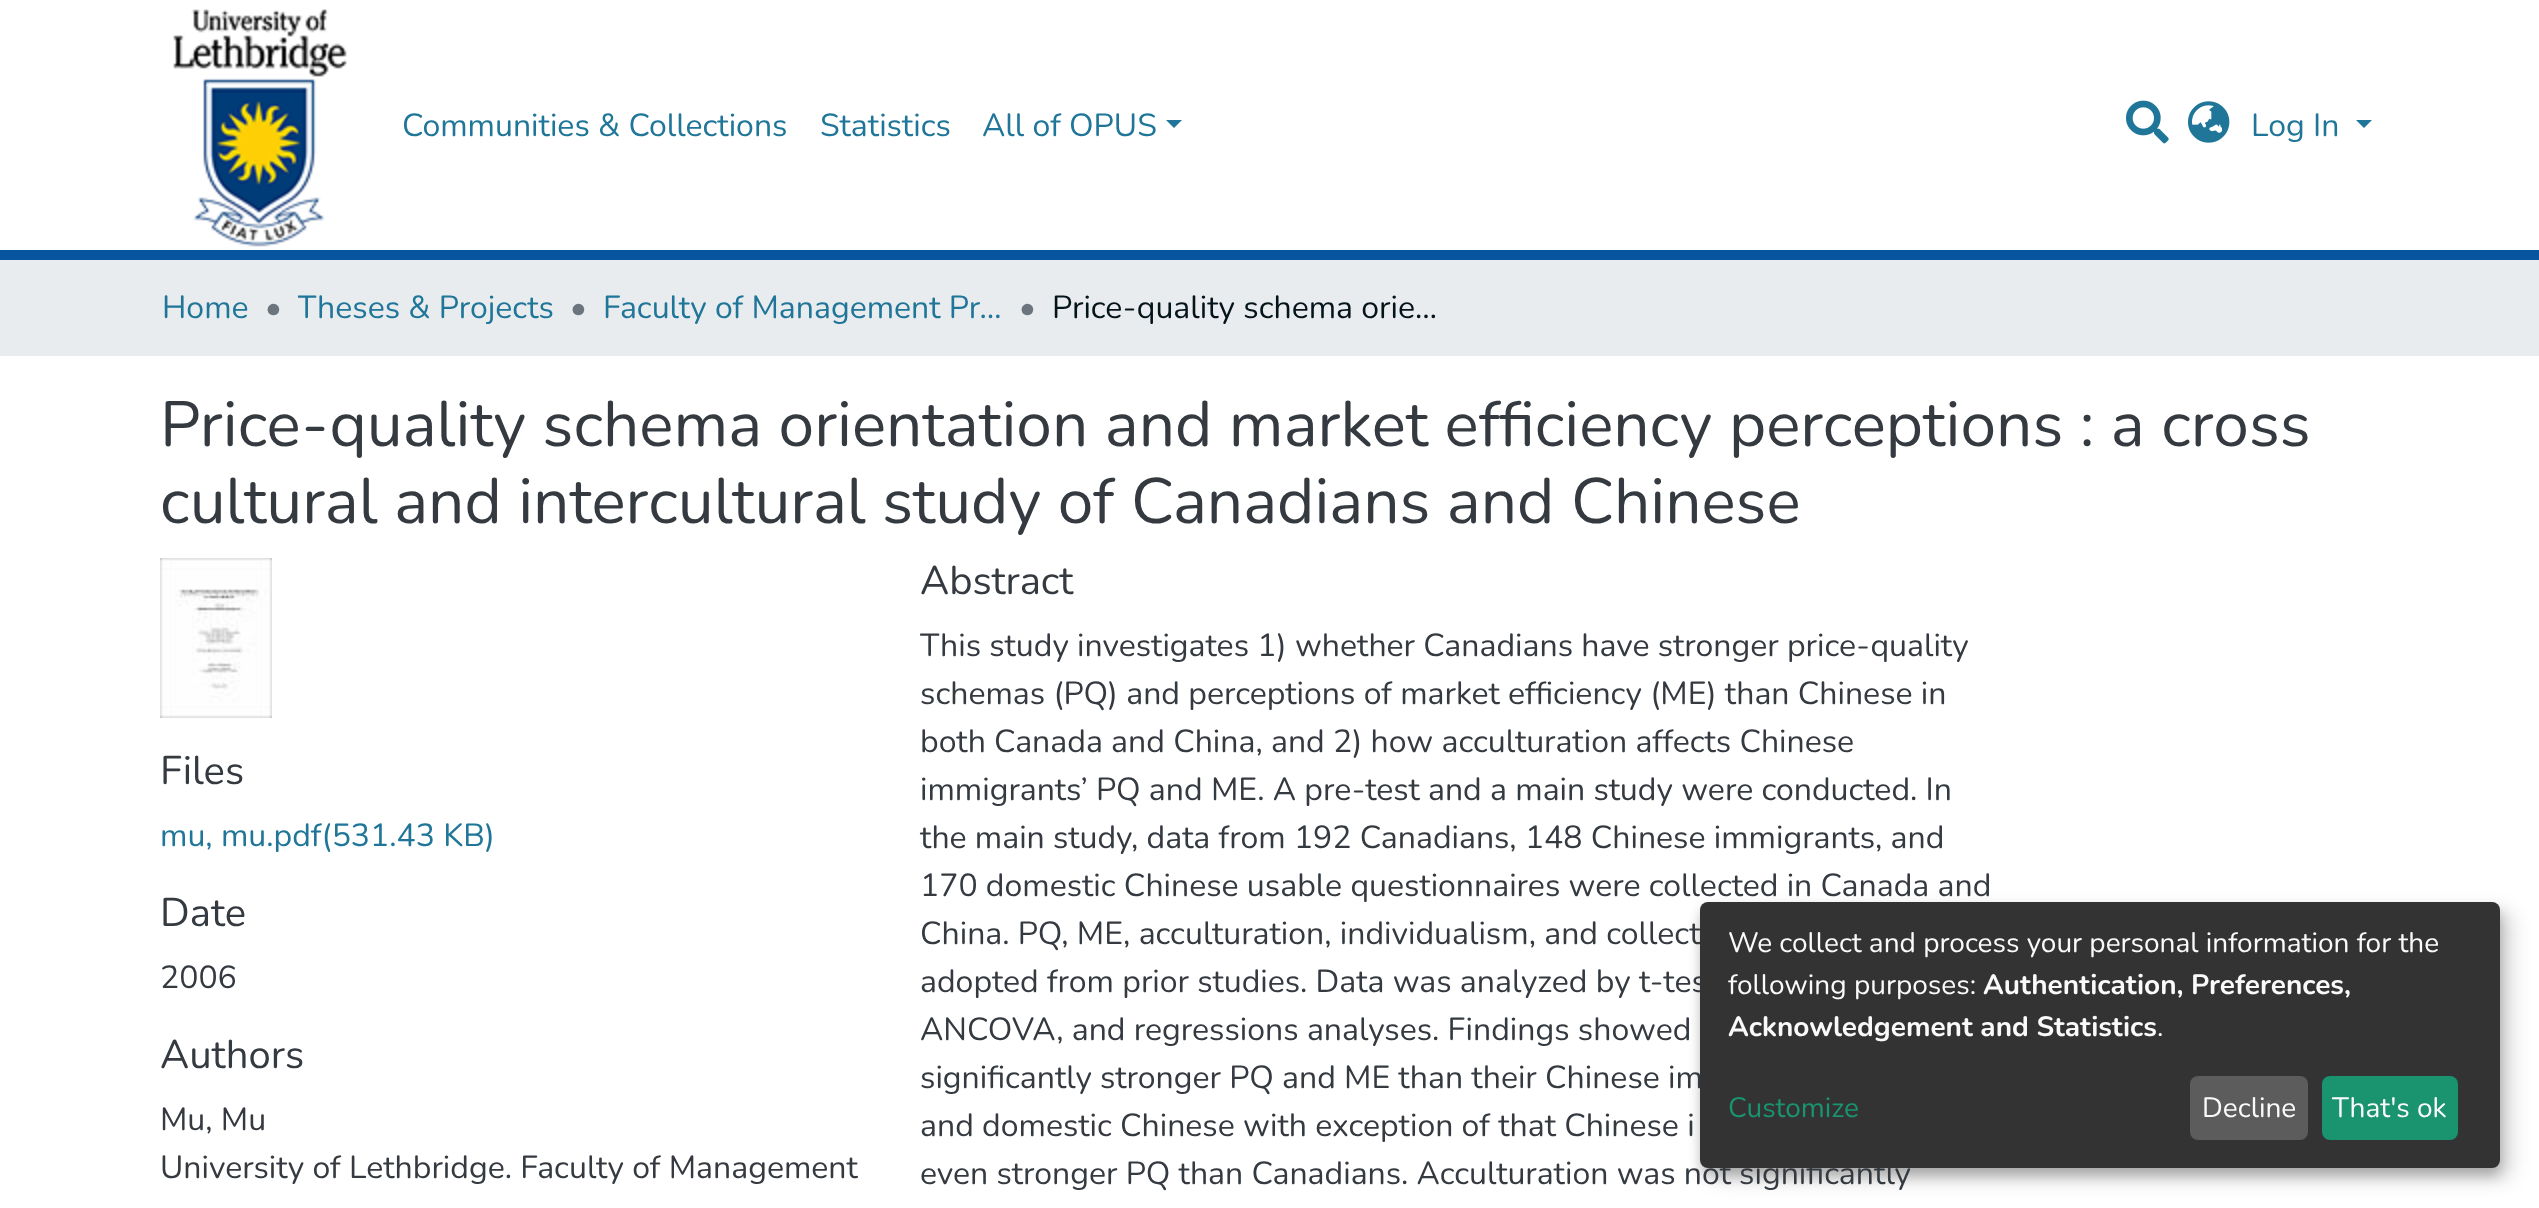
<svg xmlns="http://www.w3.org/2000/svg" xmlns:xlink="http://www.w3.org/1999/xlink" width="2539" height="1208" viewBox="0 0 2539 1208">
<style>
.cls-1{font:32px Nunito;fill:#207698}
.cls-2{font:32px Nunito;fill:#6c757d}
.cls-3{font:32px Nunito;fill:#05141a}
.cls-4{font:64px Nunito;fill:#343a40}
.cls-5{font:40px Nunito;fill:#343a40}
.cls-6{font:32px Nunito;fill:#343a40}
.cls-7{font:28px Nunito;fill:#fafafa}
.cls-8{font:bold 28px Nunito;fill:#fafafa}
.cls-9{font:28px Nunito;fill:#1a936f}
</style>
<defs>
<clipPath id="clip1"><rect x="298" y="284" width="256" height="48"/></clipPath>
</defs>
<rect width="100%" height="100%" fill="#ffffff"/>
<rect fill="#07559f" x="0" y="250" width="2539" height="10"/>
<image xlink:href="image0.png" x="173" y="9" width="174" height="238"/>
<path fill="#207698" d="M1166 120H1182L1174 128Z"/>
<image xlink:href="image1.png" x="2126" y="100" width="43" height="44"/>
<image xlink:href="image2.png" x="2188" y="101" width="42" height="42"/>
<path fill="#207698" d="M2356 120H2372L2364 128Z"/>
<rect fill="#e9ecef" x="0" y="260" width="2539" height="96"/>
<image xlink:href="image3.png" x="160" y="558" width="112" height="160"/>
<rect fill="#000000" fill-opacity="0.19" filter="blur(10px)" x="1710" y="912" width="800" height="266" rx="8"/>
<rect fill="#000000" fill-opacity="0.2" filter="blur(6px)" x="1700" y="910" width="800" height="266" rx="8"/>
<text class="cls-1" x="402" y="136">Communities &amp; Collections</text>
<text class="cls-1" x="820" y="136">Statistics</text>
<text class="cls-1" x="982" y="136">All of OPUS</text>
<text class="cls-1" x="2251" y="136">Log In</text>
<text class="cls-1" x="162" y="318">Home</text>
<text class="cls-2" x="265" y="318">•</text>
<g clip-path="url(#clip1)">
<text class="cls-1" x="297" y="318">Theses &amp; Projects</text>
</g>
<text class="cls-2" x="570" y="318">•</text>
<text class="cls-1" x="603" y="318">Faculty of Management Pr…</text>
<text class="cls-2" x="1019" y="318">•</text>
<text class="cls-3" x="1052" y="318">Price-quality schema orie…</text>
<text class="cls-4"><tspan x="160" y="446">Price-quality schema orientation and market efficiency perceptions : a cross</tspan><tspan x="160" y="523">cultural and intercultural study of Canadians and Chinese</tspan></text>
<text class="cls-5" x="160" y="784">Files</text>
<text class="cls-1" x="160" y="846">mu, mu.pdf(531.43 KB)</text>
<text class="cls-5" x="160" y="926">Date</text>
<text class="cls-6" x="160" y="988">2006</text>
<text class="cls-5" x="160" y="1068">Authors</text>
<text class="cls-6"><tspan x="160" y="1130">Mu, Mu</tspan><tspan x="160" y="1178">University of Lethbridge. Faculty of Management</tspan></text>
<text class="cls-5" x="920" y="594">Abstract</text>
<text class="cls-6"><tspan x="920" y="656">This study investigates 1) whether Canadians have stronger price-quality</tspan><tspan x="920" y="704">schemas (PQ) and perceptions of market efficiency (ME) than Chinese in</tspan><tspan x="920" y="752">both Canada and China, and 2) how acculturation affects Chinese</tspan><tspan x="920" y="800">immigrants’ PQ and ME. A pre-test and a main study were conducted. In</tspan><tspan x="920" y="848">the main study, data from 192 Canadians, 148 Chinese immigrants, and</tspan><tspan x="920" y="896">170 domestic Chinese usable questionnaires were collected in Canada and</tspan><tspan x="920" y="944">China. PQ, ME, acculturation, individualism, and collect</tspan><tspan x="920" y="992">adopted from prior studies. Data was analyzed by t-tes</tspan><tspan x="920" y="1040">ANCOVA, and regressions analyses. Findings showed</tspan><tspan x="920" y="1088">significantly stronger PQ and ME than their Chinese im</tspan><tspan x="920" y="1136">and domestic Chinese with exception of that Chinese i</tspan><tspan x="920" y="1184">even stronger PQ than Canadians. Acculturation was not significantly</tspan></text>
<rect fill="#333333" x="1700" y="902" width="800" height="266" rx="8"/>
<text class="cls-7"><tspan x="1728" y="952">We collect and process your personal information for the</tspan><tspan x="1728" y="994">following purposes:</tspan></text>
<text class="cls-8" x="1983" y="994">Authentication, Preferences,</text>
<text class="cls-8" x="1728" y="1036">Acknowledgement and Statistics</text>
<text class="cls-7" x="2157" y="1036">.</text>
<text class="cls-9" x="1728" y="1117">Customize</text>
<rect fill="#5c5c5c" x="2190" y="1076" width="118" height="64" rx="8"/>
<text class="cls-7" x="2202" y="1117">Decline</text>
<rect fill="#1a936f" x="2322" y="1076" width="136" height="64" rx="8"/>
<text class="cls-7" x="2332" y="1117">That's ok</text>
</svg>
